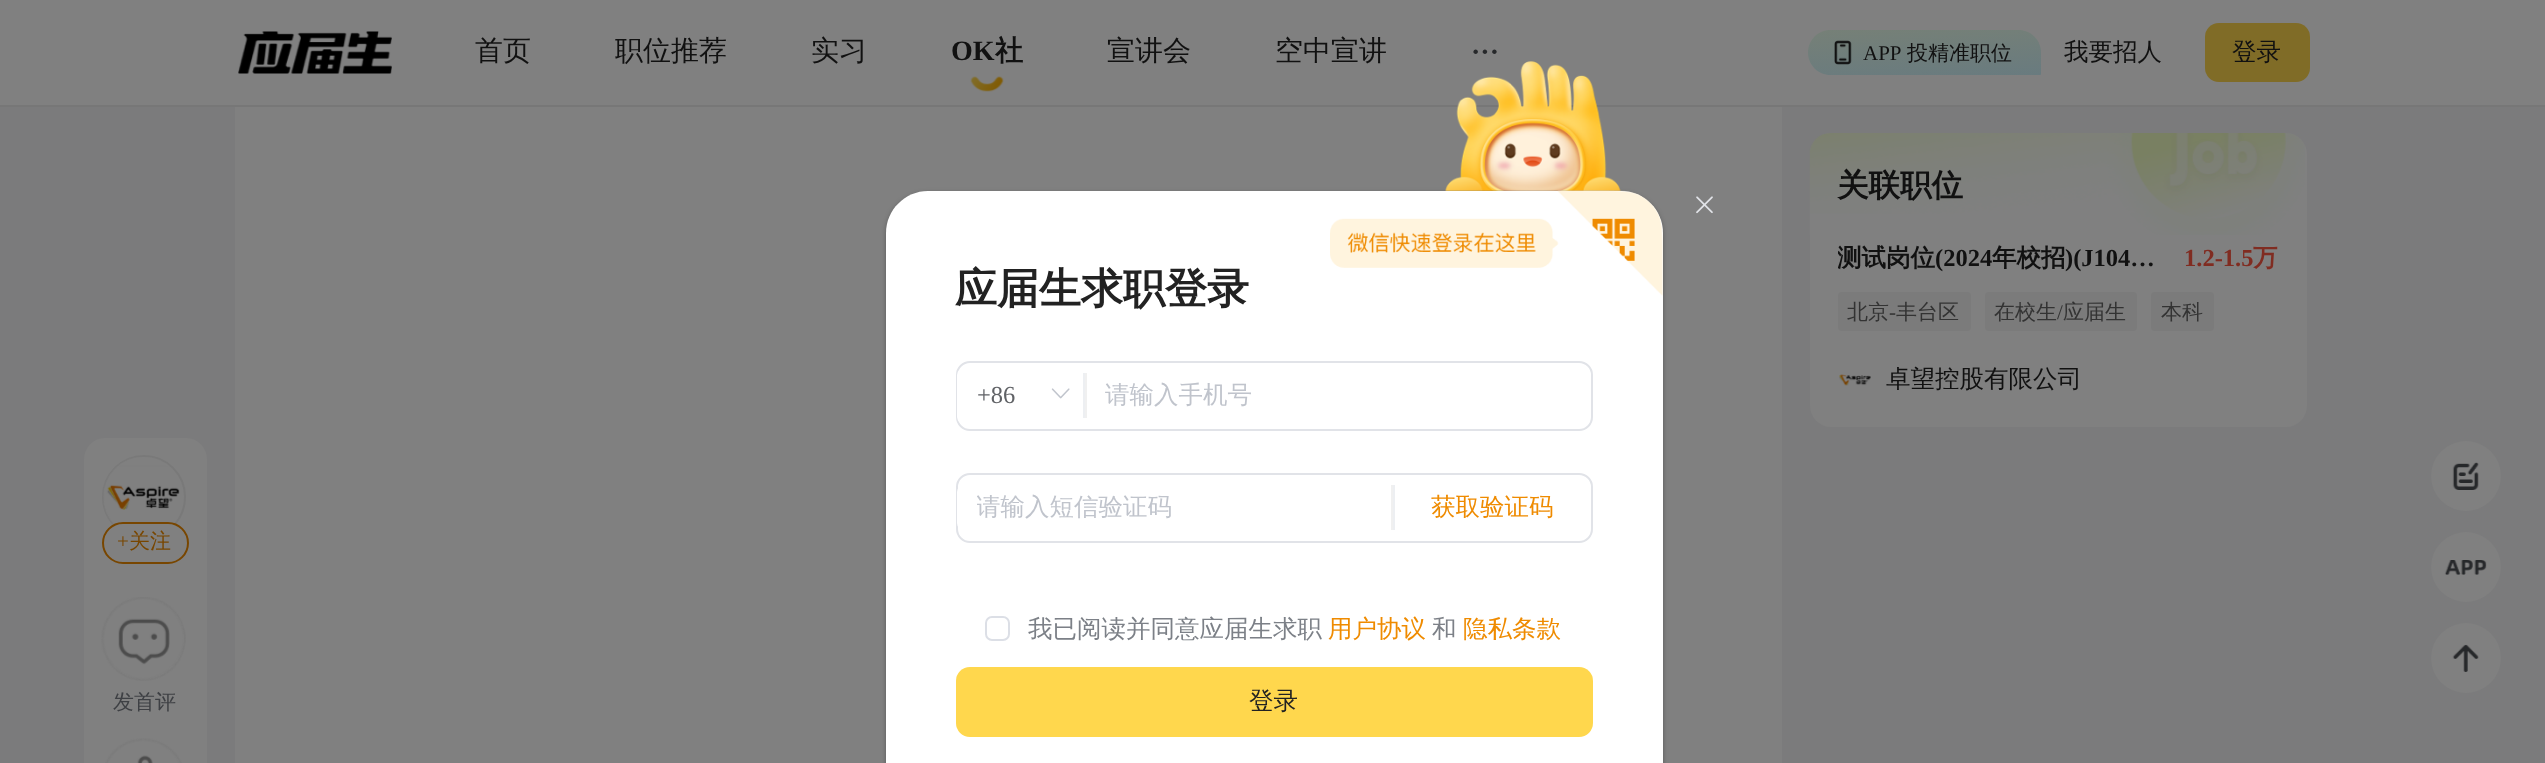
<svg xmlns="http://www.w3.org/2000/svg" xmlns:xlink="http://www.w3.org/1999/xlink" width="2545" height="763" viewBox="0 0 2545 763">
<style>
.cls-1{font:500 28px WenQuanYi Zen Hei;fill:#111111}
.cls-2{font:bold 28px Liberation Serif;fill:#111111}
.cls-3{font:bold 28px WenQuanYi Zen Hei;fill:#111111}
.cls-4{font:bold 28px Liberation Serif;fill:#26282a}
.cls-5{font:21px Liberation Serif;fill:#111111}
.cls-6{font:500 21px WenQuanYi Zen Hei;fill:#111111}
.cls-7{font:500 24.5px WenQuanYi Zen Hei;fill:#111111}
.cls-8{font:bold 31.5px WenQuanYi Zen Hei;fill:#111111}
.cls-9{font:bold 24.5px WenQuanYi Zen Hei;fill:#111111}
.cls-10{font:bold 24.5px Liberation Serif;fill:#111111}
.cls-11{font:bold 24.5px Liberation Serif;fill:#802c21}
.cls-12{font:bold 24.5px WenQuanYi Zen Hei;fill:#802c21}
.cls-13{font:500 21px WenQuanYi Zen Hei;fill:#333333}
.cls-14{font:21px Liberation Serif;fill:#333333}
.cls-15{font:21px Liberation Serif;fill:#784600}
.cls-16{font:500 21px WenQuanYi Zen Hei;fill:#784600}
.cls-17{font:500 21px WenQuanYi Zen Hei;fill:#3e4044}
.cls-18{font:bold 42px WenQuanYi Zen Hei;fill:#222222}
.cls-19{font:24.5px Liberation Serif;fill:#606266}
.cls-20{font:500 24.5px WenQuanYi Zen Hei;fill:#c0c4cc}
.cls-21{font:500 24.5px WenQuanYi Zen Hei;fill:#ef8b00}
.cls-22{font:500 24.5px WenQuanYi Zen Hei;fill:#7c8087}
.cls-23{font:500 24.5px WenQuanYi Zen Hei;fill:#222222}
</style>
<defs>
<linearGradient id="g1" gradientUnits="userSpaceOnUse" x1="1923" y1="24" x2="1926" y2="81"><stop offset="0" stop-color="#768077"/><stop offset="1" stop-color="#697b7f"/><stop offset="1" stop-color="#687a80"/></linearGradient>
<clipPath id="clip1"><rect x="957" y="362" width="634" height="67" rx="12"/></clipPath>
<clipPath id="clip2"><rect x="1838" y="240" width="318" height="38"/></clipPath>
<clipPath id="clip3"><rect x="977" y="492" width="397" height="31"/></clipPath>
</defs>
<rect width="100%" height="100%" fill="#7b7b7c"/>
<rect fill="#808080" x="0" y="0" width="2545" height="105"/>
<rect fill="#777777" x="0" y="105" width="2545" height="2"/>
<image xlink:href="image0.png" x="238" y="31" width="154" height="43"/>
<image xlink:href="image1.png" x="970" y="76" width="34" height="16"/>
<path fill="url(#g1)" d="M1830.5 30H2018.5C2031 30 2041 40 2041 52.5V74C2041 74.5 2040.5 75 2040 75H1830.5C1818 75 1808 65 1808 52.5C1808 40 1818 30 1830.5 30Z"/>
<image xlink:href="image2.png" x="1834" y="40" width="18" height="25"/>
<rect fill="#806c27" x="2205" y="23" width="105" height="59" rx="14"/>
<circle fill="#808080" cx="2466" cy="476" r="35"/>
<image xlink:href="image3.png" x="2452" y="462" width="27" height="28"/>
<circle fill="#808080" cx="2466" cy="567" r="35"/>
<image xlink:href="image4.png" x="2444" y="560" width="43" height="15"/>
<circle fill="#808080" cx="2466" cy="658" r="35"/>
<image xlink:href="image5.png" x="2452" y="644" width="27" height="28"/>
<rect fill="#808080" x="235" y="107" width="1547" height="656"/>
<rect fill="#808080" x="1810" y="133" width="497" height="294" rx="21"/>
<image xlink:href="image6.png" x="1809" y="133" width="496" height="102"/>
<rect fill="#7b7b7b" x="1838" y="292" width="133" height="39" rx="4"/>
<rect fill="#7b7b7b" x="1985" y="292" width="152" height="39" rx="4"/>
<rect fill="#7b7b7b" x="2151" y="292" width="63" height="39" rx="4"/>
<image xlink:href="image7.png" x="1839" y="374" width="32" height="12"/>
<rect fill="#808080" x="84" y="438" width="123" height="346" rx="21"/>
<circle fill="none" stroke="#797979" stroke-width="2" cx="144" cy="497" r="41"/>
<image xlink:href="image8.png" x="103" y="457" width="77" height="68"/>
<rect fill="#808080" stroke="#784600" stroke-width="2" x="103" y="523" width="85" height="40" rx="20"/>
<image xlink:href="image9.png" x="101" y="597" width="85" height="84"/>
<image xlink:href="image10.png" x="105" y="738" width="77" height="25"/>
<rect fill="#000000" fill-opacity="0.3" filter="blur(2.5px)" x="886" y="193" width="777" height="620" rx="42"/>
<image xlink:href="image11.png" x="1696" y="196" width="17" height="18"/>
<path fill="#ffffff" d="M928 191H1621C1644 191 1663 210 1663 233V763H886V233C886 210 905 191 928 191Z"/>
<image xlink:href="image12.png" x="1445" y="61" width="176" height="130"/>
<image xlink:href="image13.png" x="1330" y="190" width="333" height="106"/>
<rect fill="none" stroke="#e1e3e8" stroke-width="2" x="957" y="362" width="635" height="68" rx="13"/>
<g clip-path="url(#clip1)">
<rect fill="#ffffff" x="957" y="368" width="126" height="56" rx="7"/>
</g>
<image xlink:href="image14.png" x="1051" y="388" width="19" height="11"/>
<rect fill="#edeff2" x="1083" y="373" width="2" height="45"/>
<rect fill="#f0f0f0" x="1085" y="373" width="2" height="45"/>
<rect fill="none" stroke="#e1e3e8" stroke-width="2" x="957" y="474" width="635" height="68" rx="13"/>
<rect fill="#edeff2" x="1393" y="485" width="2" height="45"/>
<rect fill="#ffffff" x="957" y="485" width="436" height="45" rx="7"/>
<rect fill="#f0f0f0" x="1391" y="485" width="2" height="45"/>
<rect fill="none" stroke="#dcdfe6" stroke-width="2" x="986" y="617" width="23" height="23" rx="6"/>
<rect fill="#ffd74d" x="956" y="667" width="637" height="70" rx="14"/>
<text class="cls-1" x="475" y="60">首页</text>
<text class="cls-1" x="615" y="60">职位推荐</text>
<text class="cls-1" x="811" y="60">实习</text>
<text class="cls-2" x="951" y="60">OK</text>
<text class="cls-3" x="995" y="60">社</text>
<text class="cls-1" x="1107" y="60">宣讲会</text>
<text class="cls-1" x="1275" y="60">空中宣讲</text>
<text class="cls-4" x="1471" y="61">···</text>
<text class="cls-5" x="1863" y="60">APP</text>
<text class="cls-6" x="1907" y="60">投精准职位</text>
<text class="cls-7" x="2064" y="60">我要招人</text>
<text class="cls-7" x="2232" y="60">登录</text>
<text class="cls-8" x="1837" y="196">关联职位</text>
<g clip-path="url(#clip2)">
<text class="cls-9" x="1837" y="266">测试岗位</text>
</g>
<text class="cls-10" x="1935" y="266">(2024</text>
<text class="cls-9" x="1992" y="266">年校招</text>
<text class="cls-10" x="2065" y="266">)(J104…</text>
<text class="cls-11" x="2184" y="266">1.2-1.5</text>
<text class="cls-12" x="2253" y="266">万</text>
<text class="cls-13" x="1847" y="319">北京</text>
<text class="cls-14" x="1889" y="319">-</text>
<text class="cls-13" x="1896" y="319">丰台区</text>
<text class="cls-13" x="1994" y="319">在校生</text>
<text class="cls-14" x="2057" y="319">/</text>
<text class="cls-13" x="2063" y="319">应届生</text>
<text class="cls-13" x="2161" y="319">本科</text>
<text class="cls-7" x="1886" y="387">卓望控股有限公司</text>
<text class="cls-15" x="117" y="548">+</text>
<text class="cls-16" x="129" y="548">关注</text>
<text class="cls-17" x="113" y="709">发首评</text>
<text class="cls-18" x="955" y="303">应届生求职登录</text>
<text class="cls-19" x="977" y="403">+86</text>
<text class="cls-20" x="1105" y="403">请输入手机号</text>
<g clip-path="url(#clip3)">
<text class="cls-20" x="976" y="515">请输入短信验证码</text>
</g>
<text class="cls-21" x="1431" y="515">获取验证码</text>
<text class="cls-22" x="1028" y="637">我已阅读并同意应届生求职</text>
<text class="cls-21" x="1328" y="637">用户协议</text>
<text class="cls-22" x="1432" y="637">和</text>
<text class="cls-21" x="1463" y="637">隐私条款</text>
<text class="cls-23" x="1249" y="709">登录</text>
</svg>
